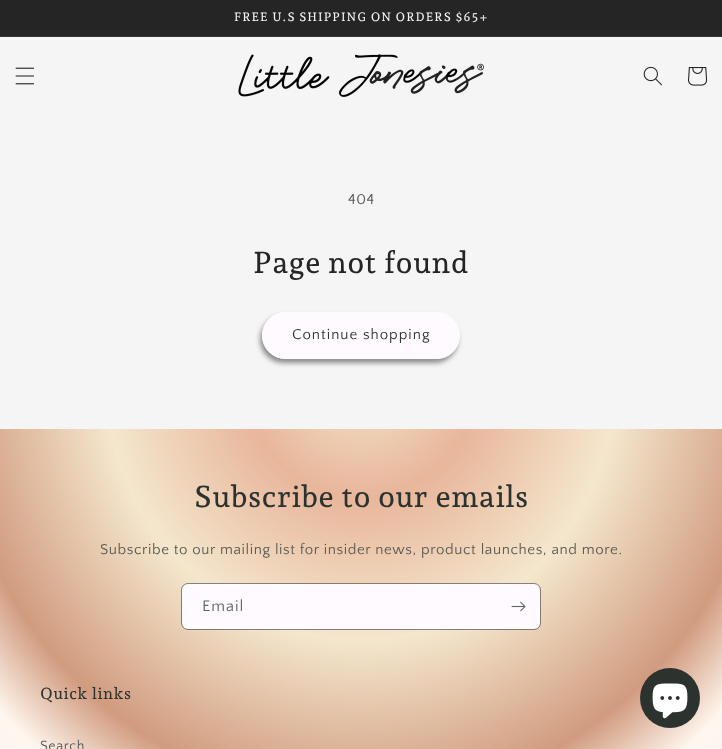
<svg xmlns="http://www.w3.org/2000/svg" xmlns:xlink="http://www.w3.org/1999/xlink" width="722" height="749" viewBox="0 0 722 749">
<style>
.cls-1{font:500 12px Andada Pro;letter-spacing:1px;fill:#f5f5f5}
.cls-2{font:15px Quattrocento Sans;letter-spacing:0.6px;fill:#595959}
.cls-3{font:500 30px Andada Pro;letter-spacing:0.6px;fill:#252525}
.cls-4{font:15px Quattrocento Sans;letter-spacing:1px;fill:#2c332f}
.cls-5{font:500 30px Andada Pro;letter-spacing:0.6px;fill:#2c332f}
.cls-6{font:15px Quattrocento Sans;letter-spacing:0.6px;fill:#5d5b52}
.cls-7{font:16px Quattrocento Sans;letter-spacing:1px;fill:#616563}
.cls-8{font:500 16px Andada Pro;letter-spacing:0.6px;fill:#2c332f}
.cls-9{font:14px Quattrocento Sans;letter-spacing:0.6px;fill:#595959}
</style>
<defs>
<radialGradient id="g1" gradientUnits="userSpaceOnUse" cx="0" cy="0" r="1" gradientTransform="matrix(511 0 0 530 361 375)"><stop offset="0" stop-color="#f4e6cb"/><stop offset="0.23" stop-color="#e8b69b"/><stop offset="0.5" stop-color="#f4e7cd"/><stop offset="0.8" stop-color="#d19b7f"/><stop offset="0.95" stop-color="#fff7ef"/><stop offset="1" stop-color="#fef3f1"/><stop offset="1" stop-color="#f2d0bf"/></radialGradient>
<radialGradient id="g2" gradientUnits="userSpaceOnUse" cx="0" cy="0" r="1" gradientTransform="matrix(511 0 0 530 361 375)"><stop offset="0" stop-color="#f4e6cc"/><stop offset="0.23" stop-color="#e8b69b"/><stop offset="0.5" stop-color="#f4e7ce"/><stop offset="0.8" stop-color="#d19b7f"/><stop offset="0.95" stop-color="#fff7ef"/><stop offset="1" stop-color="#fef3f1"/><stop offset="1" stop-color="#f3d0bf"/></radialGradient>
</defs>
<rect width="100%" height="100%" fill="#f5f5f5"/>
<rect fill="#252525" x="0" y="0" width="722" height="36"/>
<rect fill="#363636" x="0" y="36" width="722" height="1"/>
<image xlink:href="image0.png" x="15" y="67" width="20" height="18"/>
<image xlink:href="image1.png" x="238" y="54" width="246" height="43"/>
<image xlink:href="image2.png" x="643" y="66" width="19" height="20"/>
<image xlink:href="image3.png" x="688" y="67" width="20" height="19"/>
<rect fill="#252525" fill-opacity="0.5" filter="blur(2.5px)" x="260" y="316" width="198" height="47" rx="23.5"/>
<rect fill="#fffaff" x="262" y="312" width="198" height="47" rx="23.5"/>
<rect fill="none" stroke="#fffaff" x="262.5" y="312.5" width="197" height="46" rx="23"/>
<rect fill="url(#g1)" x="0" y="429" width="722" height="240"/>
<rect fill="#fffaff" x="182" y="584" width="358" height="45" rx="6"/>
<rect fill="none" stroke="#2c332f" stroke-opacity="0.55" x="181.5" y="583.5" width="359" height="46" rx="6.5"/>
<image xlink:href="image4.png" x="511" y="601" width="15" height="11"/>
<rect fill="url(#g2)" x="0" y="669" width="722" height="80"/>
<circle fill="#2c332f" cx="670" cy="698" r="30"/>
<image xlink:href="image5.png" x="652" y="683" width="36" height="36"/>
<text class="cls-1" x="234" y="21">FREE U.S SHIPPING ON ORDERS $65+</text>
<text class="cls-2" x="348" y="204">404</text>
<text class="cls-3" x="253" y="273">Page not found</text>
<text class="cls-4" x="292" y="339">Continue shopping</text>
<text class="cls-5" x="194" y="507">Subscribe to our emails</text>
<text class="cls-6" x="100" y="554">Subscribe to our mailing list for insider news, product launches, and more.</text>
<text class="cls-7" x="202" y="611">Email</text>
<text class="cls-8" x="40" y="699">Quick links</text>
<text class="cls-9" x="40" y="750">Search</text>
</svg>
